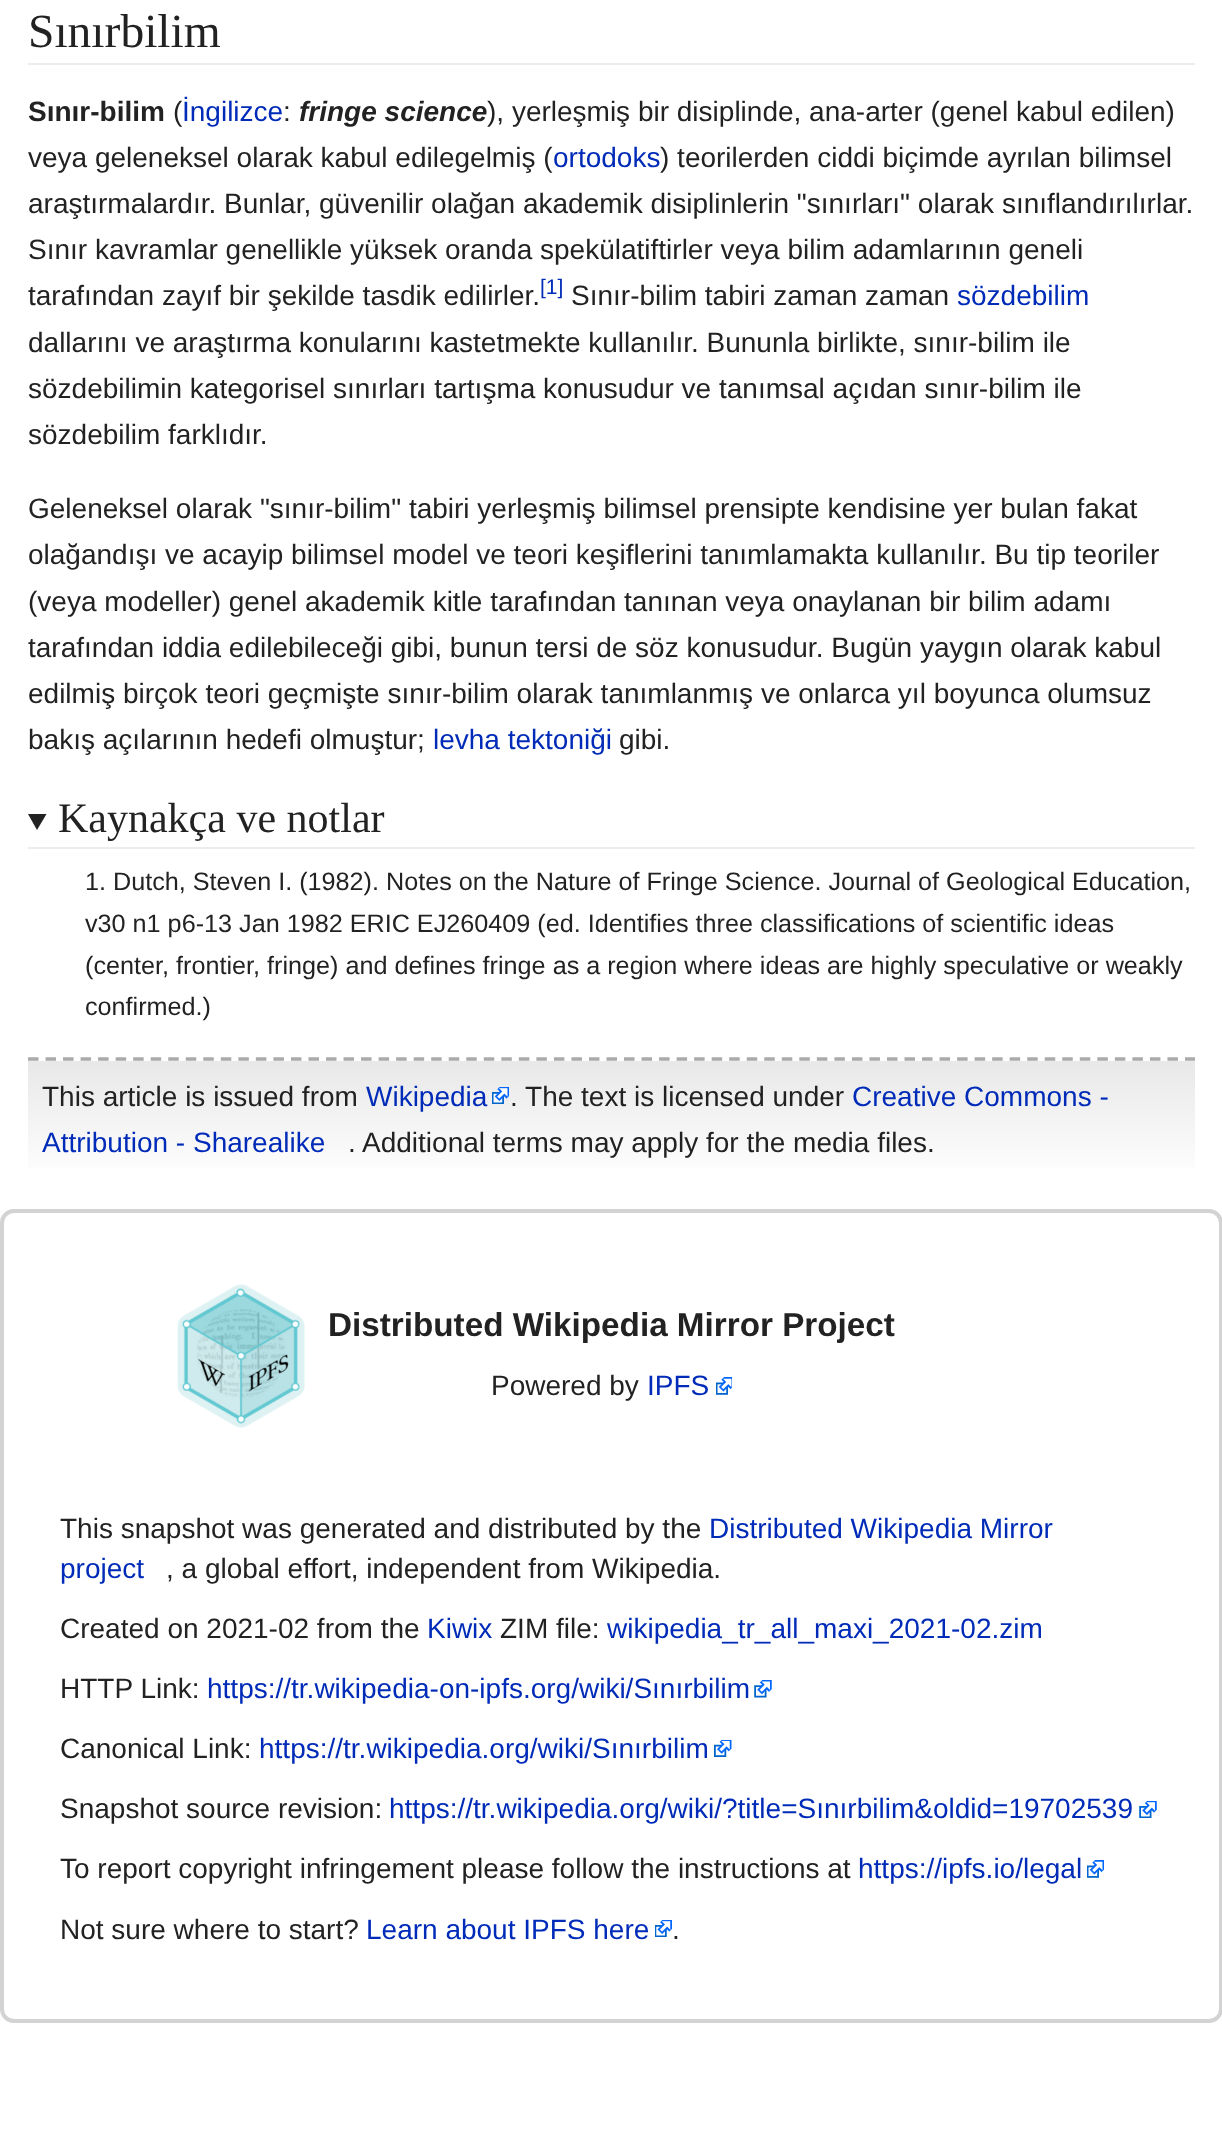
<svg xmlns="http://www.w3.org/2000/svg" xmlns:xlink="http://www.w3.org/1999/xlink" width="1222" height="2133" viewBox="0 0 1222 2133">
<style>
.cls-1{font:47.5px Liberation Serif;fill:#222222}
.cls-2{font:bold 28px Liberation Sans;fill:#222222}
.cls-3{font:28px Liberation Sans;fill:#222222}
.cls-4{font:28px Liberation Sans;fill:#002bb8}
.cls-5{font:italic bold 28px Liberation Sans;fill:#222222}
.cls-6{font:21px Liberation Sans;fill:#002bb8}
.cls-7{font:42px Liberation Serif;fill:#222222}
.cls-8{font:25.2px Liberation Sans;fill:#222222}
.cls-9{font:bold 33.25px Liberation Sans;fill:#222222}
</style>
<defs>
<linearGradient id="g1" gradientUnits="userSpaceOnUse" x1="612" y1="1061" x2="612" y2="1181"><stop offset="0" stop-color="#e8e8e8"/><stop offset="1" stop-color="#ffffff"/></linearGradient>
</defs>
<rect width="100%" height="100%" fill="#ffffff"/>
<rect fill="#eaecf0" x="28" y="63" width="1167" height="2"/>
<rect fill="#eaecf0" x="28" y="847" width="1167" height="2"/>
<path fill="#222222" d="M28 814H46.5L37 830Z"/>
<rect fill="url(#g1)" x="28" y="1061" width="1167" height="107"/>
<path fill="none" stroke="#aaaaaa" stroke-width="3.5" stroke-dasharray="10.5 7.03" d="M28 1059H1195"/>
<image xlink:href="image0.png" x="492" y="1087" width="17" height="17"/>
<rect fill="none" stroke="#d3d3d3" stroke-width="4" x="2" y="1211" width="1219" height="810" rx="12"/>
<image xlink:href="image1.png" x="177" y="1284" width="128" height="144"/>
<image xlink:href="image2.png" x="716" y="1377" width="16" height="18"/>
<image xlink:href="image3.png" x="754" y="1680" width="18" height="18"/>
<image xlink:href="image4.png" x="714" y="1740" width="18" height="17"/>
<image xlink:href="image5.png" x="1139" y="1801" width="18" height="17"/>
<image xlink:href="image6.png" x="1087" y="1860" width="17" height="18"/>
<image xlink:href="image7.png" x="655" y="1920" width="17" height="17"/>
<text class="cls-1" x="28" y="47">Sınırbilim</text>
<text class="cls-2" x="28" y="121">Sınır-bilim</text>
<text class="cls-3" x="173" y="121">(</text>
<text class="cls-4" x="182" y="121">İngilizce</text>
<text class="cls-3" x="283" y="121">:</text>
<text class="cls-5" x="299" y="121">fringe science</text>
<text class="cls-3" x="487" y="121">), yerleşmiş bir disiplinde, ana-arter (genel kabul edilen)</text>
<text class="cls-3" x="28" y="167">veya geleneksel olarak kabul edilegelmiş (</text>
<text class="cls-4" x="553" y="167">ortodoks</text>
<text class="cls-3" x="660" y="167">) teorilerden ciddi biçimde ayrılan bilimsel</text>
<text class="cls-3"><tspan x="28" y="213">araştırmalardır. Bunlar, güvenilir olağan akademik disiplinlerin "sınırları" olarak sınıflandırılırlar.</tspan><tspan x="28" y="259">Sınır kavramlar genellikle yüksek oranda spekülatiftirler veya bilim adamlarının geneli</tspan><tspan x="28" y="305">tarafından zayıf bir şekilde tasdik edilirler.</tspan></text>
<text class="cls-6" x="540" y="294">[1]</text>
<text class="cls-3" x="571" y="305">Sınır-bilim tabiri zaman zaman</text>
<text class="cls-4" x="957" y="305">sözdebilim</text>
<text class="cls-3"><tspan x="28" y="352">dallarını ve araştırma konularını kastetmekte kullanılır. Bununla birlikte, sınır-bilim ile</tspan><tspan x="28" y="398">sözdebilimin kategorisel sınırları tartışma konusudur ve tanımsal açıdan sınır-bilim ile</tspan><tspan x="28" y="444">sözdebilim farklıdır.</tspan></text>
<text class="cls-3"><tspan x="28" y="518">Geleneksel olarak "sınır-bilim" tabiri yerleşmiş bilimsel prensipte kendisine yer bulan fakat</tspan><tspan x="28" y="564">olağandışı ve acayip bilimsel model ve teori keşiflerini tanımlamakta kullanılır. Bu tip teoriler</tspan><tspan x="28" y="611">(veya modeller) genel akademik kitle tarafından tanınan veya onaylanan bir bilim adamı</tspan><tspan x="28" y="657">tarafından iddia edilebileceği gibi, bunun tersi de söz konusudur. Bugün yaygın olarak kabul</tspan><tspan x="28" y="703">edilmiş birçok teori geçmişte sınır-bilim olarak tanımlanmış ve onlarca yıl boyunca olumsuz</tspan><tspan x="28" y="749">bakış açılarının hedefi olmuştur;</tspan></text>
<text class="cls-4" x="433" y="749">levha tektoniği</text>
<text class="cls-3" x="619" y="749">gibi.</text>
<text class="cls-7" x="58" y="832">Kaynakça ve notlar</text>
<text class="cls-8"><tspan x="85" y="890">1. Dutch, Steven I. (1982). Notes on the Nature of Fringe Science. Journal of Geological Education,</tspan><tspan x="85" y="932">v30 n1 p6-13 Jan 1982 ERIC EJ260409 (ed. Identifies three classifications of scientific ideas</tspan><tspan x="85" y="974">(center, frontier, fringe) and defines fringe as a region where ideas are highly speculative or weakly</tspan><tspan x="85" y="1015">confirmed.)</tspan></text>
<text class="cls-3" x="42" y="1106">This article is issued from</text>
<text class="cls-4" x="366" y="1106">Wikipedia</text>
<text class="cls-3" x="510" y="1106">. The text is licensed under</text>
<text class="cls-4" x="852" y="1106">Creative Commons -</text>
<text class="cls-4" x="42" y="1152">Attribution - Sharealike</text>
<text class="cls-3" x="348" y="1152">. Additional terms may apply for the media files.</text>
<text class="cls-9" x="328" y="1336">Distributed Wikipedia Mirror Project</text>
<text class="cls-3" x="491" y="1395">Powered by</text>
<text class="cls-4" x="647" y="1395">IPFS</text>
<text class="cls-3" x="60" y="1538">This snapshot was generated and distributed by the</text>
<text class="cls-4" x="709" y="1538">Distributed Wikipedia Mirror</text>
<text class="cls-4" x="60" y="1578">project</text>
<text class="cls-3" x="166" y="1578">, a global effort, independent from Wikipedia.</text>
<text class="cls-3" x="60" y="1638">Created on 2021-02 from the</text>
<text class="cls-4" x="427" y="1638">Kiwix</text>
<text class="cls-3" x="500" y="1638">ZIM file:</text>
<text class="cls-4" x="607" y="1638">wikipedia_tr_all_maxi_2021-02.zim</text>
<text class="cls-3" x="60" y="1698">HTTP Link:</text>
<text class="cls-4" x="207" y="1698">https://tr.wikipedia-on-ipfs.org/wiki/Sınırbilim</text>
<text class="cls-3" x="60" y="1758">Canonical Link:</text>
<text class="cls-4" x="259" y="1758">https://tr.wikipedia.org/wiki/Sınırbilim</text>
<text class="cls-3" x="60" y="1818">Snapshot source revision:</text>
<text class="cls-4" x="389" y="1818">https://tr.wikipedia.org/wiki/?title=Sınırbilim&amp;oldid=19702539</text>
<text class="cls-3" x="60" y="1878">To report copyright infringement please follow the instructions at</text>
<text class="cls-4" x="858" y="1878">https://ipfs.io/legal</text>
<text class="cls-3" x="60" y="1939">Not sure where to start?</text>
<text class="cls-4" x="366" y="1939">Learn about IPFS here</text>
<text class="cls-3" x="672" y="1939">.</text>
</svg>
